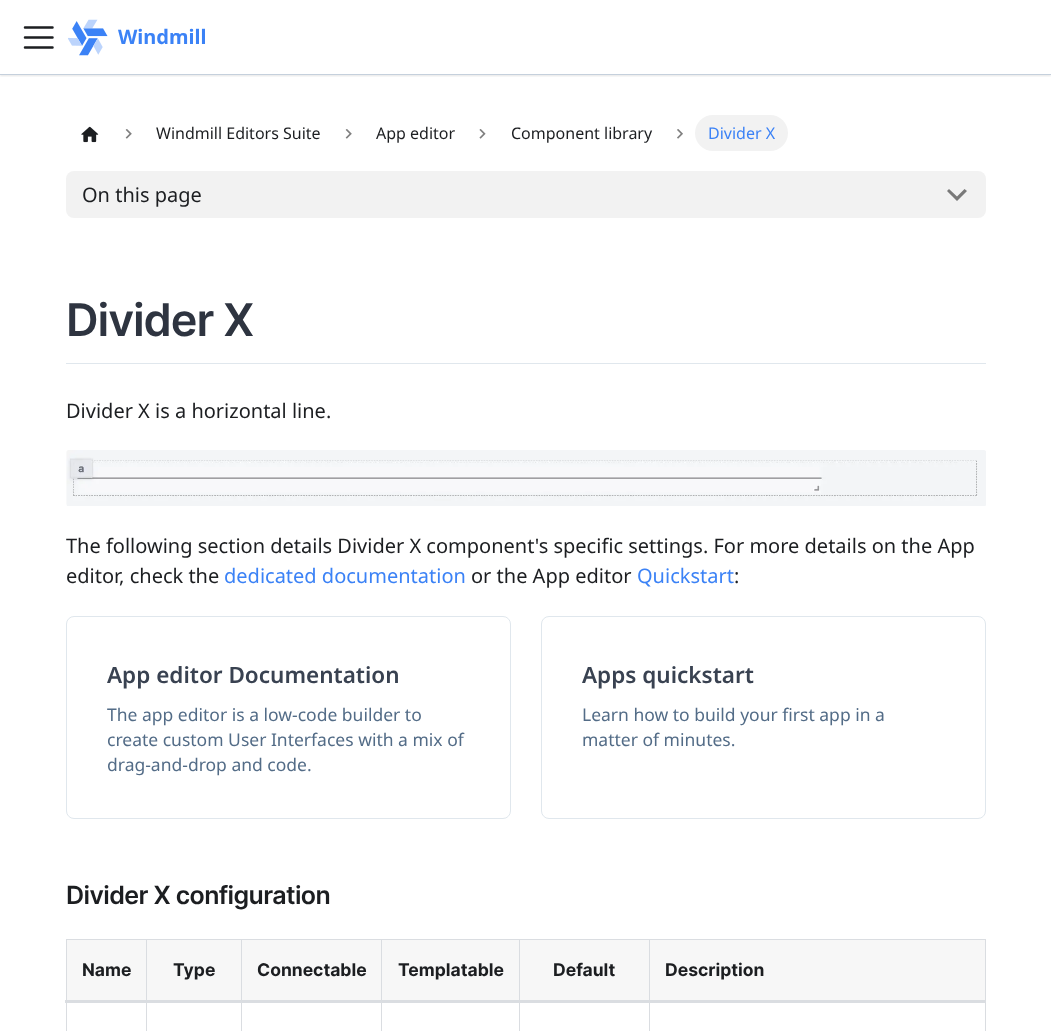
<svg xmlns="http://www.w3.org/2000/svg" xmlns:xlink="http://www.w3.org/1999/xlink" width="1051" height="1031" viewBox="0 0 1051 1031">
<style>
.cls-1{font:bold 20px Noto Sans;fill:#3b82f6}
.cls-2{font:16px Noto Sans;fill:#1c1e21}
.cls-3{font:16px Noto Sans;fill:#3b82f6}
.cls-4{font:20px Noto Sans;fill:#1c1e21}
.cls-5{font:600 45px Inter;letter-spacing:-1.1px;fill:#2e3440}
.cls-6{font:20px Noto Sans;fill:#3b82f6}
.cls-7{font:600 22.5px Noto Sans;fill:#394251}
.cls-8{font:17.5px Noto Sans;fill:#536c87}
.cls-9{font:600 25px Inter;letter-spacing:-0.6px;fill:#1c1e21}
.cls-10{font:bold 17.5px Inter;fill:#1c1e21}
</style>
<defs>
<clipPath id="clip1"><rect x="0" y="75" width="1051" height="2"/></clipPath>
</defs>
<rect width="100%" height="100%" fill="#ffffff"/>
<g clip-path="url(#clip1)">
<rect fill="#000000" fill-opacity="0.1" filter="blur(1px)" x="0" y="1" width="1051" height="75"/>
</g>
<rect fill="#c5d0dc" x="0" y="74" width="1051" height="1"/>
<path fill="none" stroke="#1c1e21" stroke-width="2.5" stroke-linecap="round" d="M25 27.5H52.5M25 37.5H52.5M25 47.5H52.5"/>
<image xlink:href="image0.png" x="68" y="19" width="40" height="37"/>
<image xlink:href="image1.png" x="81" y="126" width="18" height="17"/>
<image xlink:href="image2.png" x="125" y="129" width="7" height="10"/>
<image xlink:href="image2.png" x="345" y="129" width="7" height="10"/>
<image xlink:href="image3.png" x="479" y="129" width="7" height="10"/>
<image xlink:href="image4.png" x="677" y="129" width="6" height="10"/>
<rect fill="#f2f2f2" x="695" y="115" width="93" height="36" rx="18"/>
<rect fill="#f2f2f2" x="66" y="171" width="920" height="47" rx="8"/>
<path fill="#797979" d="M964.5 189L957 196.5L949 189L947 191L957 201L967 191Z"/>
<rect fill="#e0e7ed" x="66" y="363" width="920" height="1"/>
<image xlink:href="image5.png" x="66" y="450" width="920" height="56"/>
<rect fill="none" stroke="#e0e7ed" x="66.5" y="616.5" width="444" height="202" rx="7.5"/>
<rect fill="none" stroke="#e0e7ed" x="541.5" y="616.5" width="444" height="202" rx="7.5"/>
<rect fill="#dadde1" x="66" y="939" width="920" height="1"/>
<rect fill="#dadde1" x="66" y="939" width="1" height="92"/>
<rect fill="#f7f7f7" x="67" y="940" width="918" height="60"/>
<rect fill="#dadde1" x="146" y="939" width="1" height="92"/>
<rect fill="#dadde1" x="241" y="939" width="1" height="92"/>
<rect fill="#dadde1" x="381" y="939" width="1" height="92"/>
<rect fill="#dadde1" x="519" y="939" width="1" height="92"/>
<rect fill="#dadde1" x="985" y="939" width="1" height="92"/>
<rect fill="#dadde1" x="649" y="939" width="1" height="92"/>
<rect fill="#dadde1" x="65" y="1000" width="921" height="3"/>
<text class="cls-1" x="118" y="44">Windmill</text>
<text class="cls-2" x="156" y="139">Windmill Editors Suite</text>
<text class="cls-2" x="376" y="139">App editor</text>
<text class="cls-2" x="511" y="139">Component library</text>
<text class="cls-3" x="708" y="139">Divider X</text>
<text class="cls-4" x="82" y="202">On this page</text>
<text class="cls-5" x="66" y="336">Divider X</text>
<text class="cls-4" x="66" y="418">Divider X is a horizontal line.</text>
<text class="cls-4"><tspan x="66" y="553">The following section details Divider X component's specific settings. For more details on the App</tspan><tspan x="66" y="583">editor, check the</tspan></text>
<text class="cls-6" x="224" y="583">dedicated documentation</text>
<text class="cls-4" x="471" y="583">or the App editor</text>
<text class="cls-6" x="637" y="583">Quickstart</text>
<text class="cls-4" x="734" y="583">:</text>
<text class="cls-7" x="107" y="683">App editor Documentation</text>
<text class="cls-8"><tspan x="107" y="721">The app editor is a low-code builder to</tspan><tspan x="107" y="746">create custom User Interfaces with a mix of</tspan><tspan x="107" y="771">drag-and-drop and code.</tspan></text>
<text class="cls-7" x="582" y="683">Apps quickstart</text>
<text class="cls-8"><tspan x="582" y="721">Learn how to build your first app in a</tspan><tspan x="582" y="746">matter of minutes.</tspan></text>
<text class="cls-9" x="66" y="904">Divider X configuration</text>
<text class="cls-10" x="82" y="976">Name</text>
<text class="cls-10" x="173" y="976">Type</text>
<text class="cls-10" x="257" y="976">Connectable</text>
<text class="cls-10" x="398" y="976">Templatable</text>
<text class="cls-10" x="553" y="976">Default</text>
<text class="cls-10" x="665" y="976">Description</text>
</svg>
